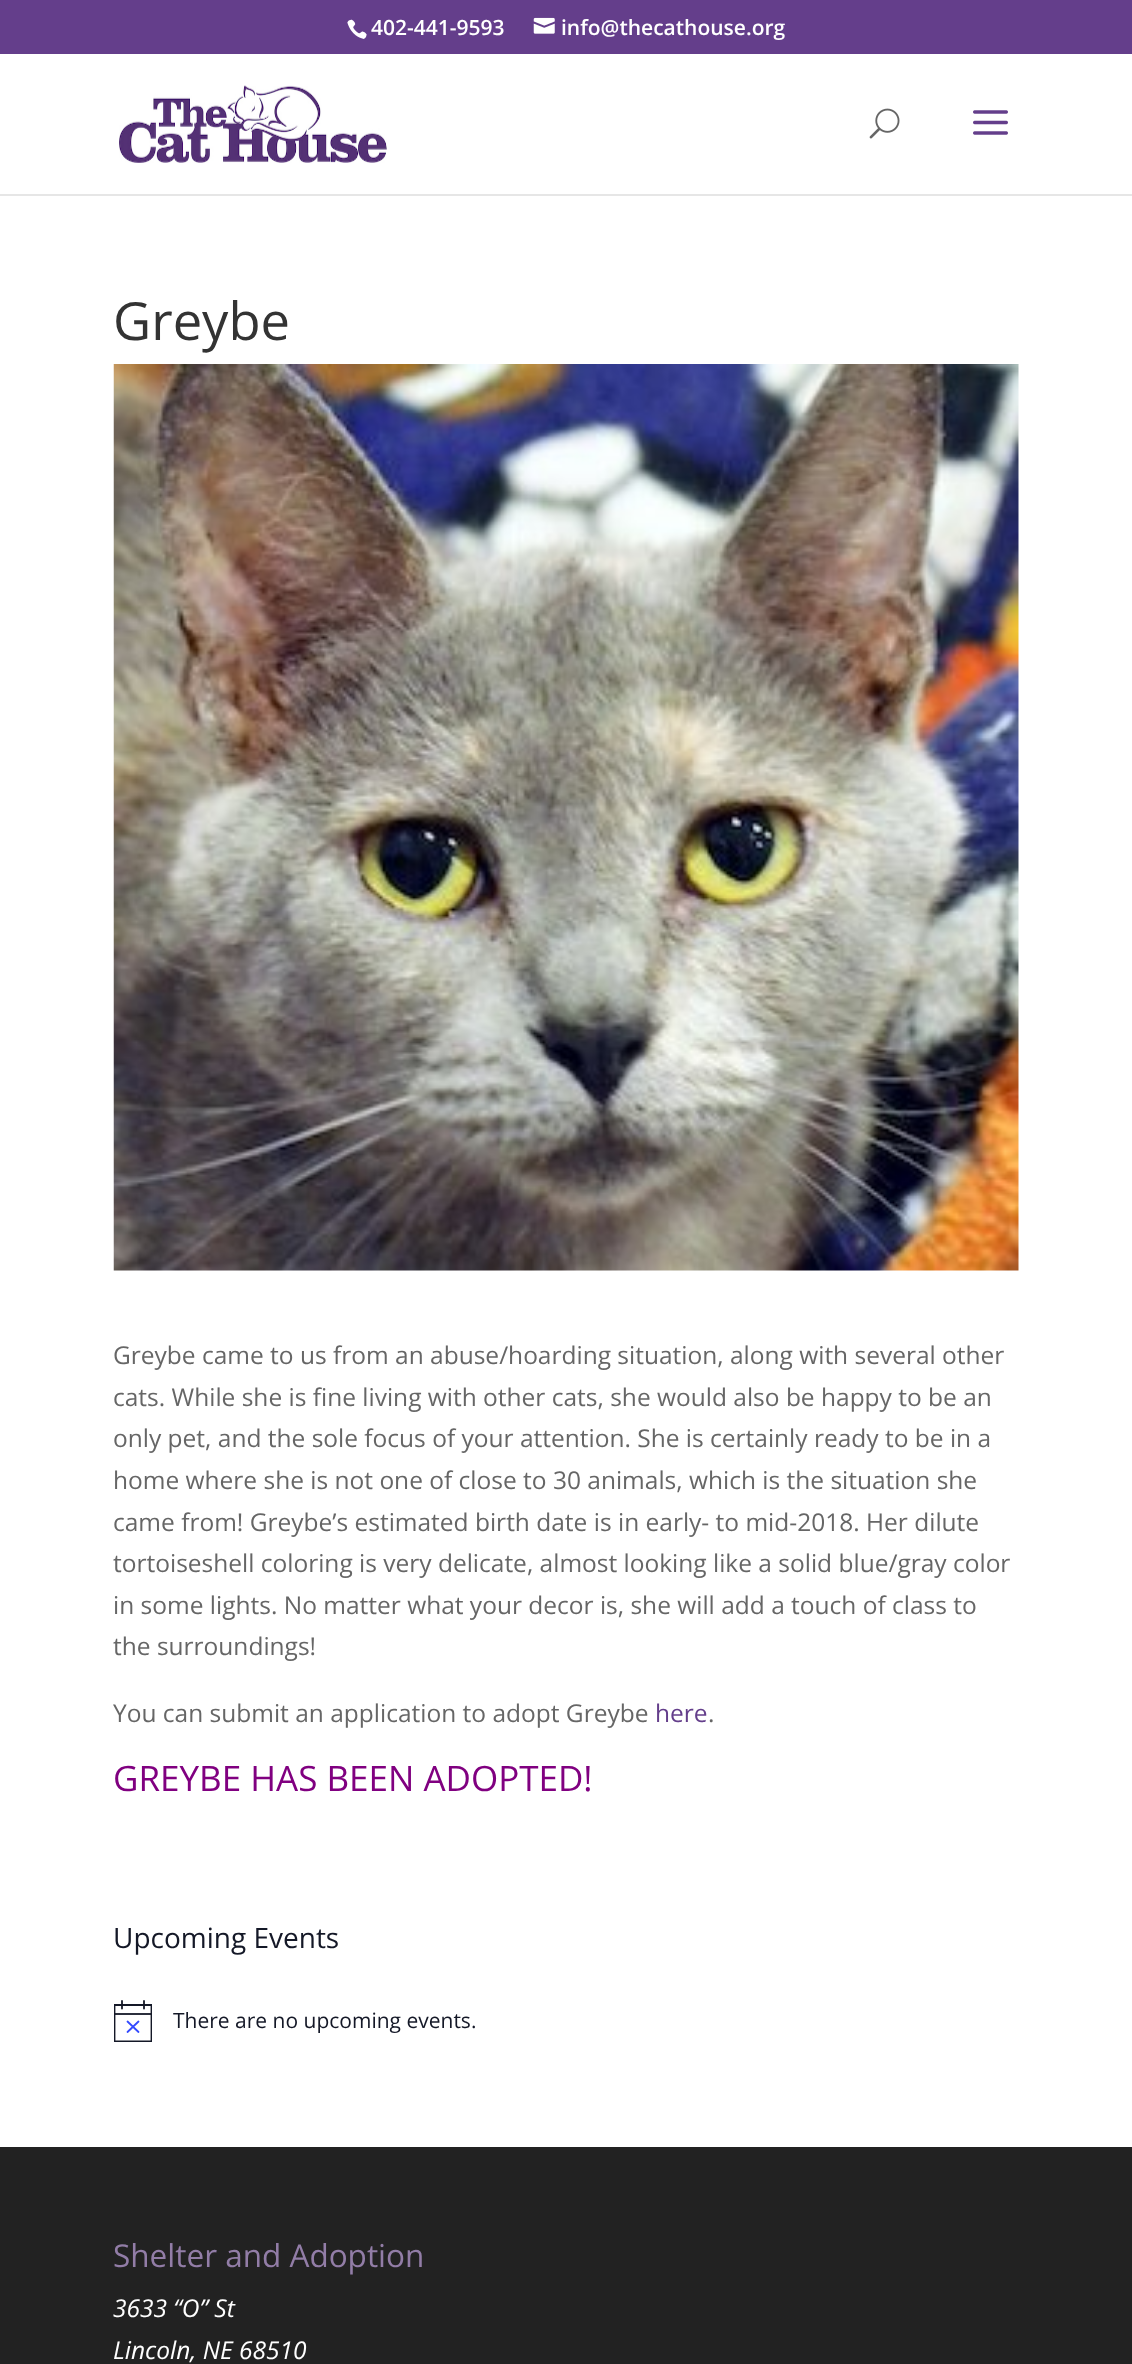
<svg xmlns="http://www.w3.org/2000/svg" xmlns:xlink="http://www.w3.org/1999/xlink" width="1132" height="2364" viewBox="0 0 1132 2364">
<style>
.cls-1{font:600 21px Open Sans;fill:#ffffff}
.cls-2{font:52.5px Open Sans;fill:#333333}
.cls-3{font:24.5px Open Sans;fill:#666666}
.cls-4{font:24.5px Open Sans;fill:#643e8b}
.cls-5{font:35px Open Sans;fill:#800080}
.cls-6{font:28px Open Sans;fill:#141827}
.cls-7{font:21px Open Sans;fill:#141827}
.cls-8{font:31.5px Open Sans;fill:#927da7}
.cls-9{font:italic 24.5px Open Sans;fill:#ffffff}
</style>
<defs>
<clipPath id="clip1"><rect x="114" y="2000" width="38" height="42"/></clipPath>
</defs>
<rect width="100%" height="100%" fill="#ffffff"/>
<rect fill="#643e8b" x="0" y="0" width="1132" height="54"/>
<image xlink:href="image0.png" x="347" y="19" width="20" height="20"/>
<image xlink:href="image1.png" x="533" y="17" width="22" height="17"/>
<rect fill="#e6e6e6" x="0" y="194" width="1132" height="2"/>
<image xlink:href="image2.png" x="119" y="85" width="268" height="78"/>
<image xlink:href="image3.png" x="869" y="108" width="31" height="31"/>
<image xlink:href="image4.png" x="973" y="110" width="35" height="25"/>
<image xlink:href="image5.png" x="113" y="364" width="906" height="907"/>
<g clip-path="url(#clip1)">
<path fill="none" stroke="#141827" stroke-width="1.8" d="M114.5 2005H151.5V2041.5H114.5Z"/>
</g>
<path fill="none" stroke="#334aff" stroke-width="1.8" stroke-linecap="round" d="M127.5 2021.5L138.5 2032M138.5 2021.5L127.5 2032"/>
<path fill="none" stroke="#141827" stroke-width="1.8" stroke-linecap="round" d="M122 2001V2008.5M144 2001V2008.5"/>
<rect fill="#141827" fill-opacity="0.9" x="114" y="2013" width="38" height="2"/>
<rect fill="#222222" x="0" y="2147" width="1132" height="217"/>
<text class="cls-1" x="371" y="35">402-441-9593</text>
<text class="cls-1" x="561" y="35">info@thecathouse.org</text>
<text class="cls-2" x="113" y="340">Greybe</text>
<text class="cls-3"><tspan x="113" y="1364">Greybe came to us from an abuse/hoarding situation, along with several other</tspan><tspan x="113" y="1406">cats. While she is fine living with other cats, she would also be happy to be an</tspan><tspan x="113" y="1447">only pet, and the sole focus of your attention. She is certainly ready to be in a</tspan><tspan x="113" y="1489">home where she is not one of close to 30 animals, which is the situation she</tspan><tspan x="113" y="1531">came from! Greybe’s estimated birth date is in early- to mid-2018. Her dilute</tspan><tspan x="113" y="1572">tortoiseshell coloring is very delicate, almost looking like a solid blue/gray color</tspan><tspan x="113" y="1614">in some lights. No matter what your decor is, she will add a touch of class to</tspan><tspan x="113" y="1655">the surroundings!</tspan></text>
<text class="cls-3" x="113" y="1722">You can submit an application to adopt Greybe</text>
<text class="cls-4" x="655" y="1722">here</text>
<text class="cls-3" x="708" y="1722">.</text>
<text class="cls-5" x="113" y="1791">GREYBE HAS BEEN ADOPTED!</text>
<text class="cls-6" x="113" y="1948">Upcoming Events</text>
<text class="cls-7" x="173" y="2028">There are no upcoming events.</text>
<text class="cls-8" x="113" y="2267">Shelter and Adoption</text>
<text class="cls-9"><tspan x="113" y="2317">3633 “O” St</tspan><tspan x="113" y="2359">Lincoln, NE 68510</tspan></text>
</svg>
